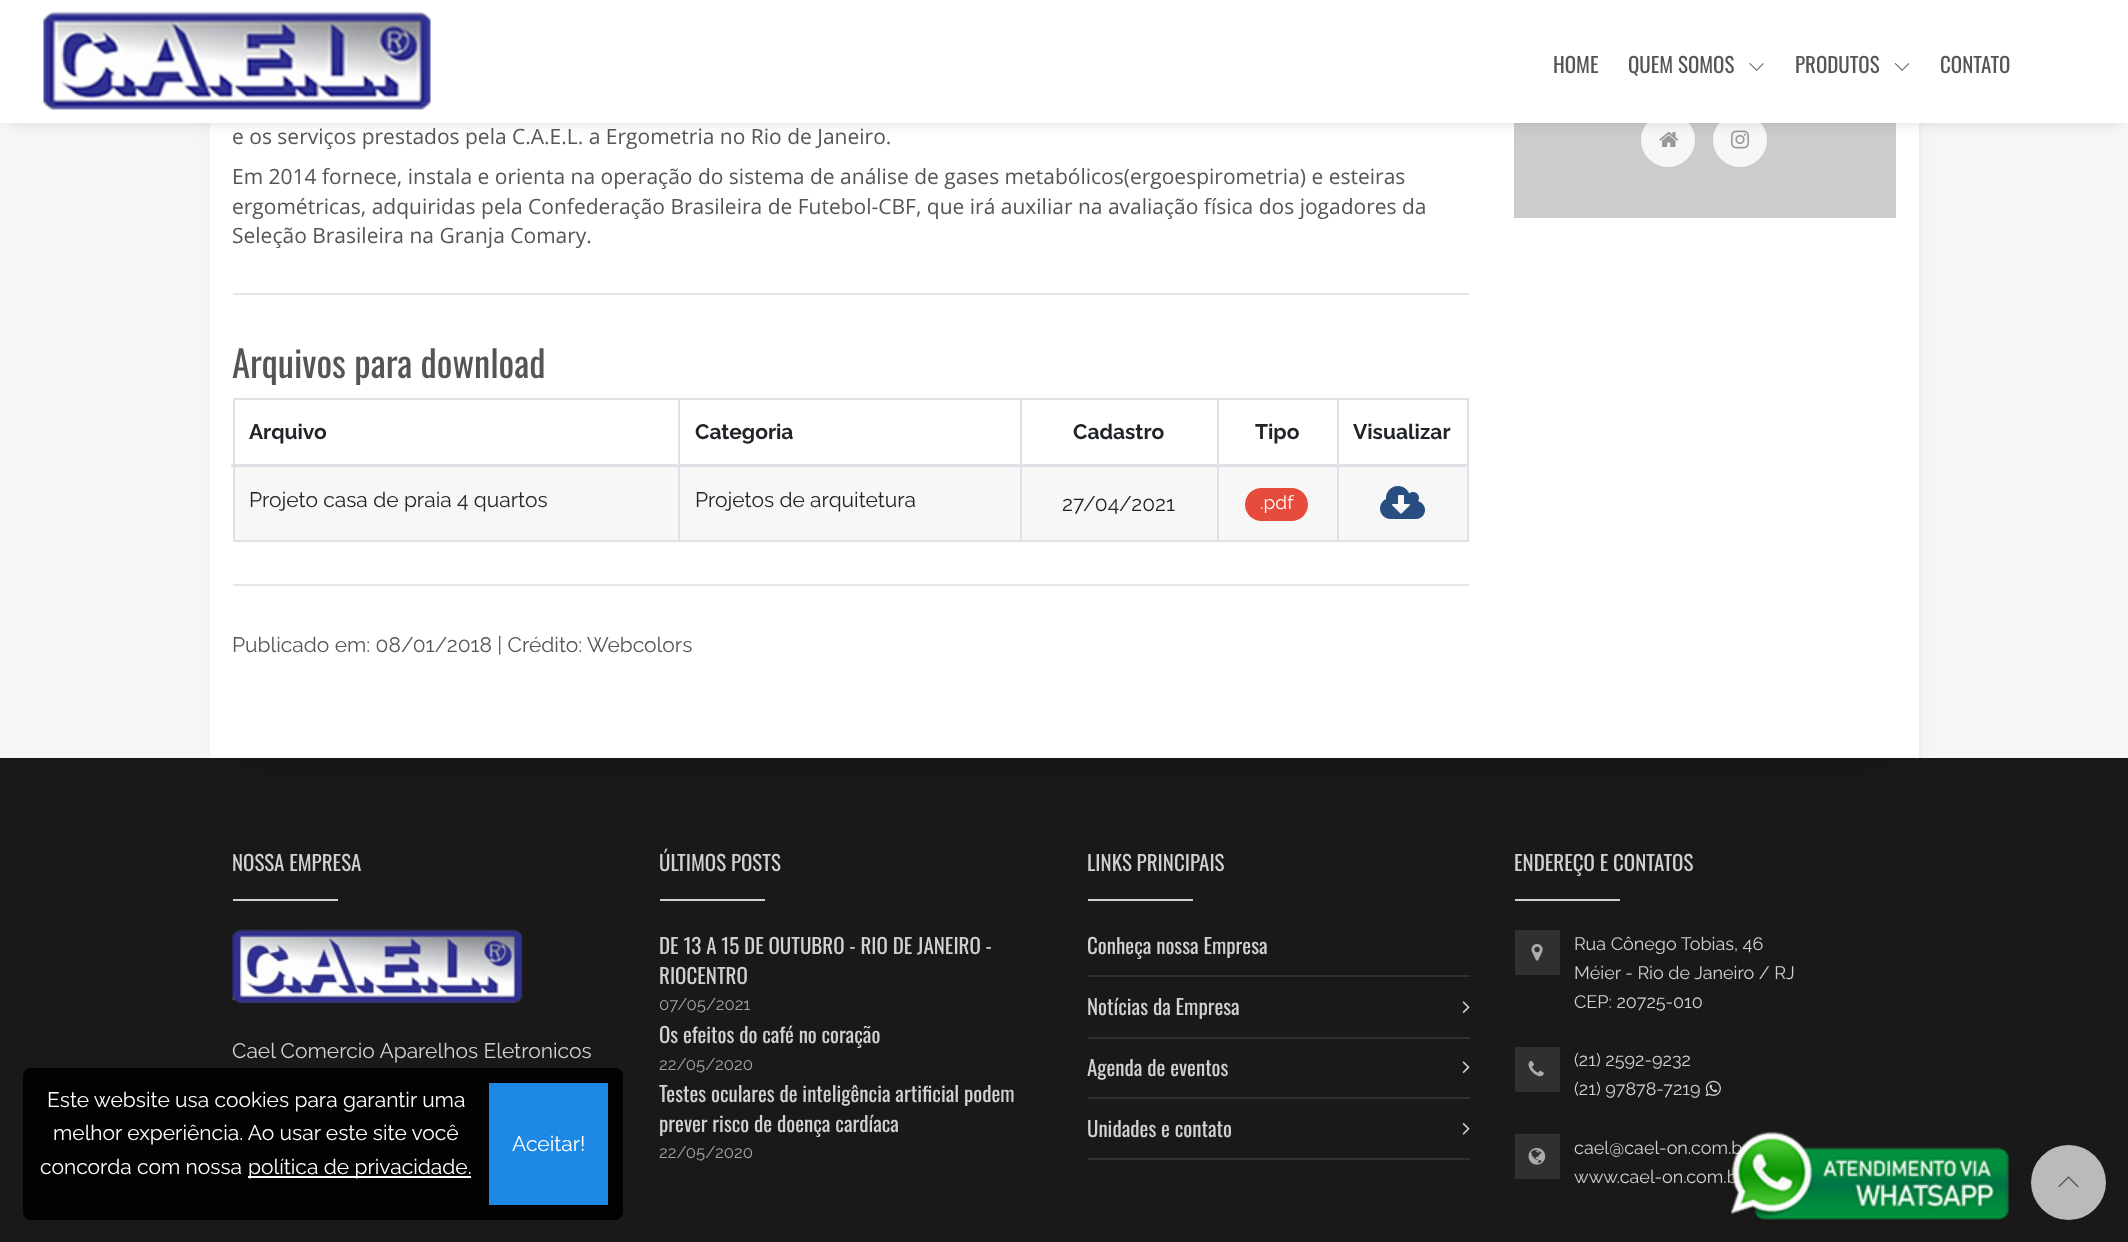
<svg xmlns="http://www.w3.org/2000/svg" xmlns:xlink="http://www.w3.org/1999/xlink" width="2128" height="1242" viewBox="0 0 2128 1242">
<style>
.cls-1{font:21px Oswald;fill:#555555}
.cls-2{font:21px Open Sans;fill:#555555}
.cls-3{font:36.75px Oswald;fill:#555555}
.cls-4{font:bold 21px Raleway;fill:#212529}
.cls-5{font:21px Raleway;fill:#212529}
.cls-6{font:19px Raleway;fill:#ffffff}
.cls-7{font:21px Raleway;fill:#555555}
.cls-8{font:21px Oswald;fill:#d1d1d1}
.cls-9{font:21px Raleway;fill:#d1d1d1}
.cls-10{font:16.75px Raleway;fill:#a3a3a3}
.cls-11{font:18px Raleway;fill:#d1d1d1}
.cls-12{font:21px Raleway;fill:#ffffff}
</style>
<rect width="100%" height="100%" fill="#f7f7f7"/>
<rect fill="#000000" fill-opacity="0.09" filter="blur(19px)" x="228" y="-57" width="1674" height="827"/>
<rect fill="#ffffff" x="210" y="123" width="1709" height="635"/>
<rect fill="#eeeeee" x="1919" y="123" width="2" height="635"/>
<rect fill="#cccccc" x="1514" y="123" width="382" height="95"/>
<circle fill="#f7f7f7" cx="1668" cy="140" r="27"/>
<image xlink:href="image4.png" x="1659" y="132" width="20" height="15"/>
<circle fill="#f7f7f7" cx="1740" cy="140" r="27"/>
<image xlink:href="image5.png" x="1731" y="130" width="18" height="19"/>
<rect fill="#000000" fill-opacity="0.15" filter="blur(7.5px)" x="9" y="15" width="2111" height="107"/>
<rect fill="#ffffff" x="0" y="0" width="2128" height="123"/>
<image xlink:href="image0.png" x="43" y="11" width="388" height="99"/>
<image xlink:href="image1.png" x="1749" y="63" width="15" height="8"/>
<image xlink:href="image2.png" x="1894" y="63" width="16" height="8"/>
<rect fill="#e6e6e6" x="233" y="293" width="1236" height="2"/>
<rect fill="#dee2e6" x="233" y="398" width="1236" height="2"/>
<rect fill="#dee2e6" x="1467" y="398" width="2" height="144"/>
<rect fill="#dee2e6" x="233" y="540" width="1236" height="2"/>
<rect fill="#dee2e6" x="233" y="398" width="2" height="144"/>
<rect fill="#f7f7f7" x="235" y="467" width="1232" height="73"/>
<rect fill="#dee2e6" x="678" y="398" width="2" height="144"/>
<rect fill="#dee2e6" x="1020" y="398" width="2" height="144"/>
<rect fill="#dee2e6" x="1217" y="398" width="2" height="144"/>
<rect fill="#dee2e6" x="1337" y="398" width="2" height="144"/>
<rect fill="#dee2e6" x="231" y="464" width="1238" height="3"/>
<rect fill="#e64b3b" x="1245" y="488" width="63" height="33" rx="16.5"/>
<image xlink:href="image3.png" x="1380" y="486" width="45" height="33"/>
<rect fill="#e6e6e6" x="233" y="584" width="1236" height="2"/>
<rect fill="#000000" fill-opacity="0.9" x="0" y="758" width="2128" height="484"/>
<rect fill="#d1d1d1" x="233" y="899" width="105" height="2"/>
<image xlink:href="image6.png" x="232" y="929" width="290" height="74"/>
<rect fill="#d1d1d1" x="660" y="899" width="105" height="2"/>
<rect fill="#d1d1d1" x="1088" y="899" width="105" height="2"/>
<rect fill="#303030" x="1088" y="975" width="382" height="2"/>
<rect fill="#303030" x="1088" y="1037" width="382" height="2"/>
<image xlink:href="image7.png" x="1462" y="1001" width="8" height="12"/>
<rect fill="#303030" x="1088" y="1097" width="382" height="2"/>
<image xlink:href="image7.png" x="1462" y="1061" width="8" height="12"/>
<rect fill="#303030" x="1088" y="1158" width="382" height="2"/>
<image xlink:href="image8.png" x="1462" y="1123" width="8" height="12"/>
<rect fill="#d1d1d1" x="1515" y="899" width="105" height="2"/>
<rect fill="#303030" x="1515" y="930" width="45" height="45"/>
<image xlink:href="image9.png" x="1531" y="944" width="12" height="17"/>
<rect fill="#303030" x="1515" y="1047" width="45" height="45"/>
<image xlink:href="image10.png" x="1528" y="1061" width="16" height="16"/>
<image xlink:href="image11.png" x="1705" y="1080" width="16" height="17"/>
<rect fill="#303030" x="1515" y="1134" width="45" height="45"/>
<image xlink:href="image12.png" x="1528" y="1148" width="18" height="17"/>
<rect fill="#000000" fill-opacity="0.9" x="23" y="1068" width="600" height="152" rx="8"/>
<rect fill="#ffffff" x="248" y="1176" width="223" height="2"/>
<rect fill="#1e88e5" x="489" y="1083" width="119" height="122"/>
<circle fill="#bababa" cx="2068.5" cy="1182.5" r="37.5"/>
<image xlink:href="image14.png" x="2058" y="1176" width="21" height="12"/>
<text class="cls-1" x="1553" y="73">HOME</text>
<text class="cls-1" x="1628" y="73">QUEM SOMOS</text>
<text class="cls-1" x="1795" y="73">PRODUTOS</text>
<text class="cls-1" x="1940" y="73">CONTATO</text>
<text class="cls-2"><tspan x="232" y="144">e os serviços prestados pela C.A.E.L. a Ergometria no Rio de Janeiro.</tspan><tspan x="232" y="184">Em 2014 fornece, instala e orienta na operação do sistema de análise de gases metabólicos(ergoespirometria) e esteiras</tspan><tspan x="232" y="214">ergométricas, adquiridas pela Confederação Brasileira de Futebol-CBF, que irá auxiliar na avaliação física dos jogadores da</tspan><tspan x="232" y="243">Seleção Brasileira na Granja Comary.</tspan></text>
<text class="cls-3" x="232" y="378">Arquivos para download</text>
<text class="cls-4" x="249" y="439">Arquivo</text>
<text class="cls-4" x="695" y="439">Categoria</text>
<text class="cls-4" x="1073" y="439">Cadastro</text>
<text class="cls-4" x="1255" y="439">Tipo</text>
<text class="cls-4" x="1353" y="439">Visualizar</text>
<text class="cls-5" x="249" y="507">Projeto casa de praia 4 quartos</text>
<text class="cls-5" x="695" y="507">Projetos de arquitetura</text>
<text class="cls-5" x="1062" y="511">27/04/2021</text>
<text class="cls-6" x="1260" y="509">.pdf</text>
<text class="cls-7" x="232" y="652">Publicado em: 08/01/2018 | Crédito: Webcolors</text>
<text class="cls-8" x="232" y="871">NOSSA EMPRESA</text>
<text class="cls-9" x="232" y="1058">Cael Comercio Aparelhos Eletronicos</text>
<text class="cls-8" x="659" y="871">ÚLTIMOS POSTS</text>
<text class="cls-8"><tspan x="659" y="954">DE 13 A 15 DE OUTUBRO - RIO DE JANEIRO -</tspan><tspan x="659" y="984">RIOCENTRO</tspan></text>
<text class="cls-10" x="659" y="1010">07/05/2021</text>
<text class="cls-8" x="659" y="1043">Os efeitos do café no coração</text>
<text class="cls-10" x="659" y="1070">22/05/2020</text>
<text class="cls-8"><tspan x="659" y="1102">Testes oculares de inteligência artificial podem</tspan><tspan x="659" y="1132">prever risco de doença cardíaca</tspan></text>
<text class="cls-10" x="659" y="1158">22/05/2020</text>
<text class="cls-8" x="1087" y="871">LINKS PRINCIPAIS</text>
<text class="cls-8" x="1087" y="954">Conheça nossa Empresa</text>
<text class="cls-8" x="1087" y="1015">Notícias da Empresa</text>
<text class="cls-8" x="1087" y="1076">Agenda de eventos</text>
<text class="cls-8" x="1087" y="1137">Unidades e contato</text>
<text class="cls-8" x="1514" y="871">ENDEREÇO E CONTATOS</text>
<text class="cls-11"><tspan x="1574" y="950">Rua Cônego Tobias, 46</tspan><tspan x="1574" y="979">Méier - Rio de Janeiro / RJ</tspan><tspan x="1574" y="1008">CEP: 20725-010</tspan></text>
<text class="cls-11"><tspan x="1574" y="1066">(21) 2592-9232</tspan><tspan x="1574" y="1095">(21) 97878-7219</tspan></text>
<text class="cls-11"><tspan x="1574" y="1154">cael@cael-on.com.b</tspan><tspan x="1574" y="1183">www.cael-on.com.b</tspan></text>
<text class="cls-12" x="47" y="1107">Este website usa cookies para garantir uma</text>
<text class="cls-12" x="53" y="1140">melhor experiência. Ao usar este site você</text>
<text class="cls-12" x="40" y="1174">concorda com nossa</text>
<text class="cls-12" x="248" y="1174">política de privacidade.</text>
<text class="cls-12" x="512" y="1151">Aceitar!</text>
<image xlink:href="image13.png" x="1728" y="1131" width="281" height="91"/>
</svg>
